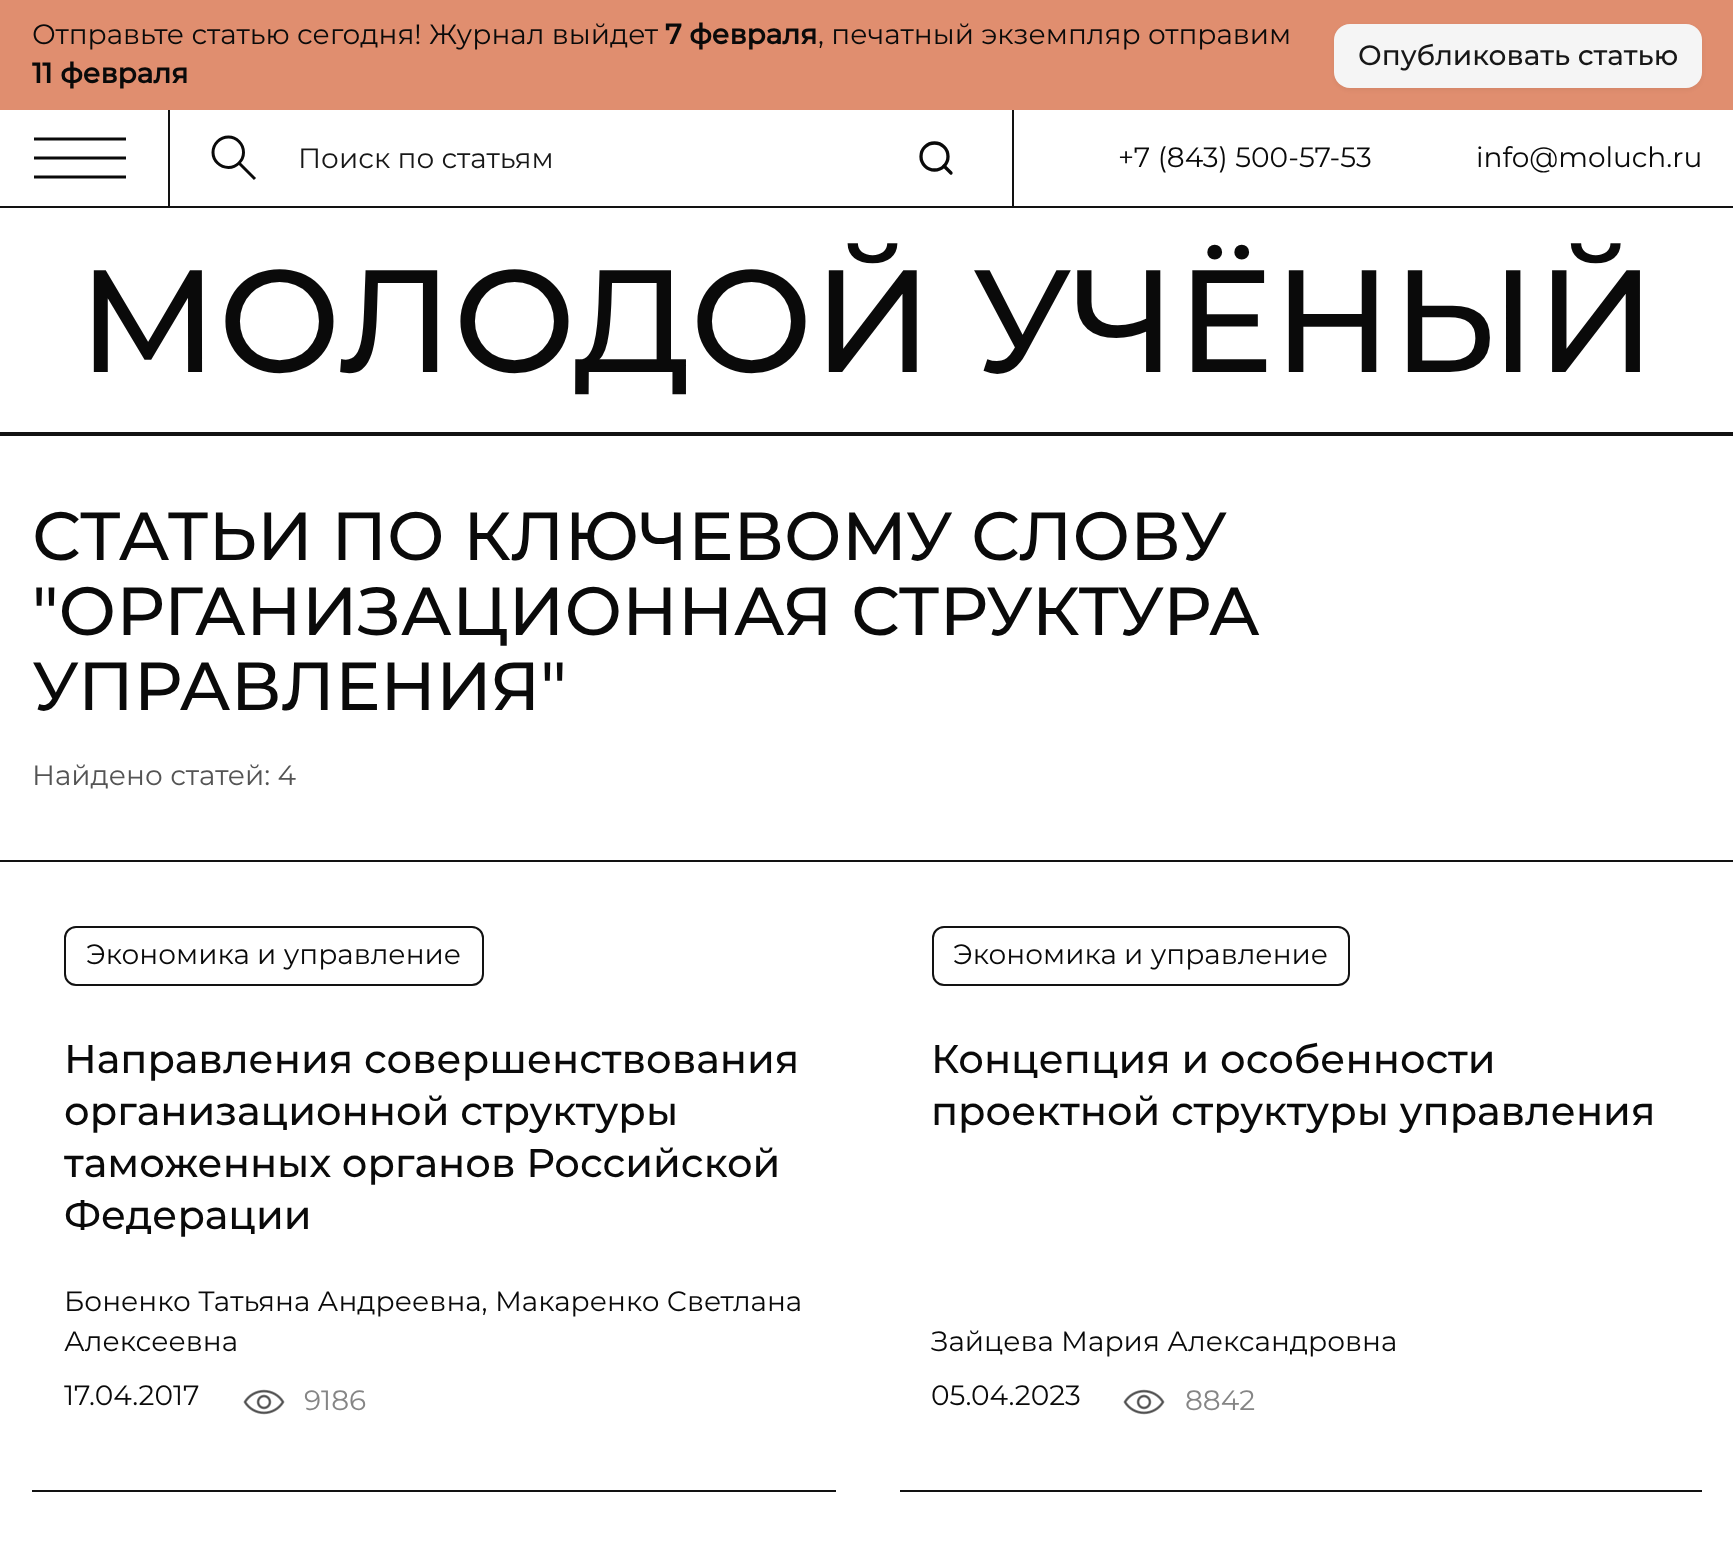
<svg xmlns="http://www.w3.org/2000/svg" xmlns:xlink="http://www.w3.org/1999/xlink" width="1733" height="1549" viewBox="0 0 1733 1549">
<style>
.cls-1{font:28px Montserrat;fill:#0a0a0a}
.cls-2{font:bold 28px Montserrat;fill:#0a0a0a}
.cls-3{font:500 28px Montserrat;fill:#171717}
.cls-4{font:28px Montserrat;fill:#171717}
.cls-5{font:500 145.25px Montserrat;fill:#0a0a0a}
.cls-6{font:500 68px Montserrat;fill:#0a0a0a}
.cls-7{font:28px Montserrat;fill:#545454}
.cls-8{font:500 40px Montserrat;fill:#0a0a0a}
.cls-9{font:28px Montserrat;fill:#858585}
</style>
<rect width="100%" height="100%" fill="#ffffff"/>
<rect fill="#e08e6f" x="0" y="0" width="1733" height="110"/>
<rect fill="#000000" fill-opacity="0.05" filter="blur(2px)" x="1334" y="26" width="368" height="64" rx="16"/>
<rect fill="#f5f5f5" x="1334" y="24" width="368" height="64" rx="16"/>
<rect fill="#121212" x="0" y="206" width="1733" height="2"/>
<path fill="none" stroke="#0a0a0a" stroke-width="3" d="M34 139H126"/>
<path fill="none" stroke="#0a0a0a" stroke-width="3" d="M34 158H126"/>
<path fill="none" stroke="#0a0a0a" stroke-width="3" d="M34 177H126"/>
<rect fill="#121212" x="168" y="110" width="2" height="96"/>
<path fill="none" stroke="#0a0a0a" stroke-width="3" d="M228.5 167.5C236.5 167.5 243.5 160.5 243.5 152.5C243.5 144 236.5 137 228.5 137C220 137 213 144 213 152.5C213 160.5 220 167.5 228.5 167.5ZM255 179L239 163"/>
<circle fill="none" stroke="#0a0a0a" stroke-width="3.3" cx="934.5" cy="156.5" r="13.5"/>
<path fill="none" stroke="#0a0a0a" stroke-width="3.3" stroke-linecap="round" stroke-linejoin="round" d="M951 173L944 166"/>
<rect fill="#121212" x="1012" y="110" width="2" height="96"/>
<rect fill="#121212" x="0" y="432" width="1733" height="4"/>
<rect fill="#121212" x="0" y="860" width="1733" height="2"/>
<rect fill="#121212" x="32" y="1490" width="804" height="2"/>
<rect fill="none" stroke="#121212" stroke-width="2" x="65" y="927" width="418" height="58" rx="11"/>
<image xlink:href="image0.png" x="243" y="1389" width="42" height="26"/>
<rect fill="#121212" x="900" y="1490" width="802" height="2"/>
<rect fill="none" stroke="#121212" stroke-width="2" x="933" y="927" width="416" height="58" rx="11"/>
<image xlink:href="image0.png" x="1123" y="1389" width="42" height="26"/>
<text class="cls-1" x="32" y="44">Отправьте статью сегодня! Журнал выйдет</text>
<text class="cls-2" x="665" y="44">7 февраля</text>
<text class="cls-1" x="818" y="44">, печатный экземпляр отправим</text>
<text class="cls-2" x="32" y="83">11 февраля</text>
<text class="cls-3" x="1358" y="65">Опубликовать статью</text>
<text class="cls-4" x="298" y="168">Поиск по статьям</text>
<text class="cls-1" x="1118" y="167">+7 (843) 500-57-53</text>
<text class="cls-1" x="1476" y="167">info@moluch.ru</text>
<text class="cls-5" x="78" y="372">МОЛОДОЙ УЧЁНЫЙ</text>
<text class="cls-6"><tspan x="32" y="560">СТАТЬИ ПО КЛЮЧЕВОМУ СЛОВУ</tspan><tspan x="32" y="635">"ОРГАНИЗАЦИОННАЯ СТРУКТУРА</tspan><tspan x="32" y="710">УПРАВЛЕНИЯ"</tspan></text>
<text class="cls-7" x="32" y="785">Найдено статей: 4</text>
<text class="cls-1" x="86" y="964">Экономика и управление</text>
<text class="cls-8"><tspan x="64" y="1073">Направления совершенствования</tspan><tspan x="64" y="1125">организационной структуры</tspan><tspan x="64" y="1177">таможенных органов Российской</tspan><tspan x="64" y="1229">Федерации</tspan></text>
<text class="cls-1"><tspan x="64" y="1311">Боненко Татьяна Андреевна, Макаренко Светлана</tspan><tspan x="64" y="1351">Алексеевна</tspan><tspan x="64" y="1405">17.04.2017</tspan></text>
<text class="cls-9" x="304" y="1410">9186</text>
<text class="cls-1" x="953" y="964">Экономика и управление</text>
<text class="cls-8"><tspan x="931" y="1073">Концепция и особенности</tspan><tspan x="931" y="1125">проектной структуры управления</tspan></text>
<text class="cls-1"><tspan x="931" y="1351">Зайцева Мария Александровна</tspan><tspan x="931" y="1405">05.04.2023</tspan></text>
<text class="cls-9" x="1185" y="1410">8842</text>
</svg>
